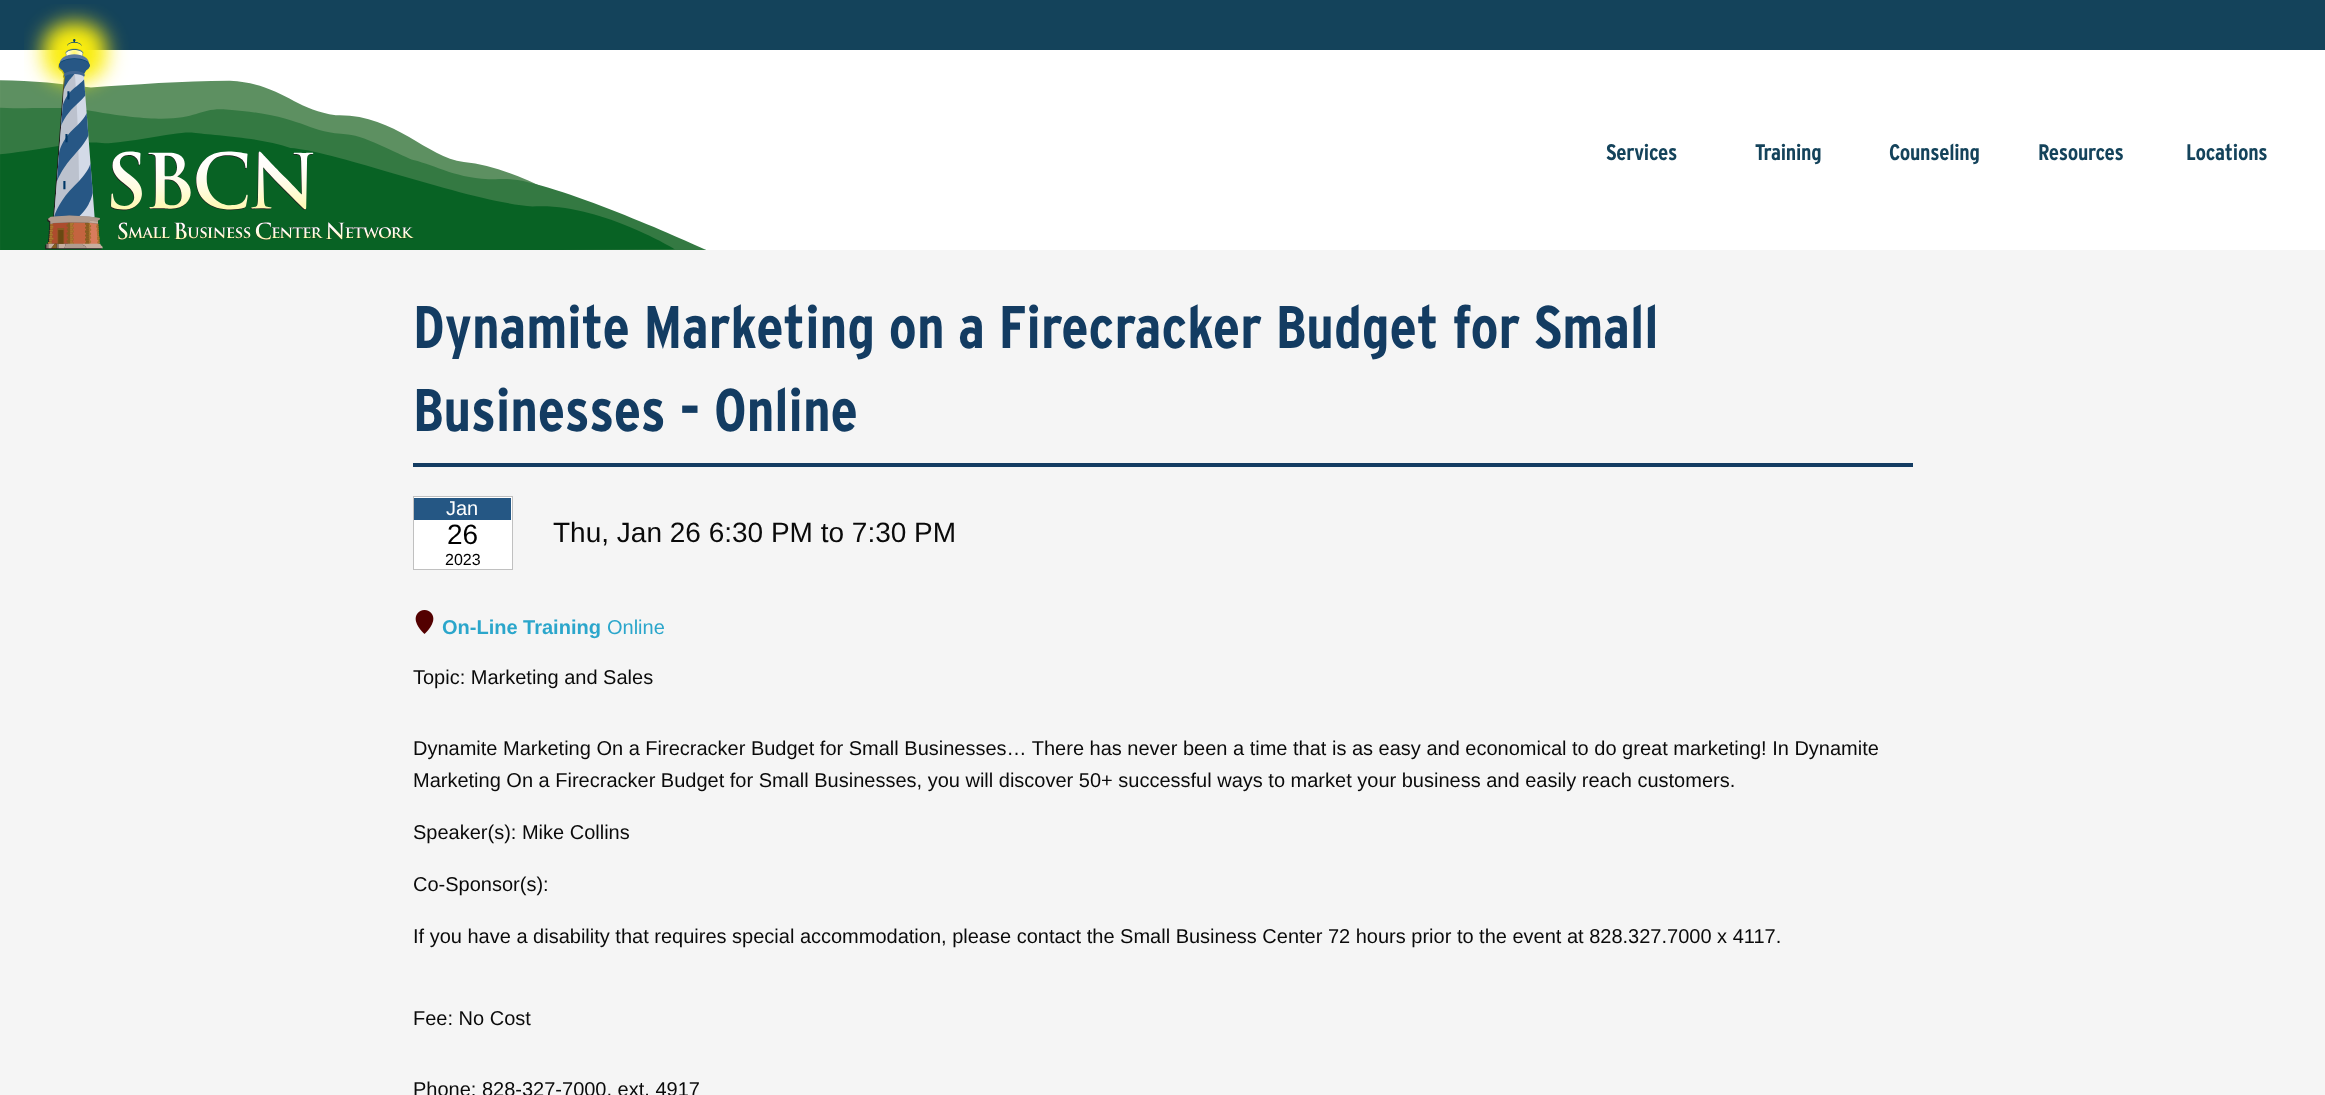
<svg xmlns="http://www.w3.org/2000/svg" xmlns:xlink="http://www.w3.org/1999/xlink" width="2325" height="1095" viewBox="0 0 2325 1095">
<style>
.cls-1{font:bold 22.5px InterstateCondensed;letter-spacing:-0.25px;fill:#14435b}
.cls-2{font:bold 60px InterstateCondensed;fill:#133c62}
.cls-3{font:20px Liberation Sans;fill:#ffffff}
.cls-4{font:28px Liberation Sans;fill:#000000}
.cls-5{font:16px Liberation Sans;fill:#000000}
.cls-6{font:28px Liberation Sans;fill:#0a0a0a}
.cls-7{font:bold 20px Liberation Sans;fill:#2ba6cb}
.cls-8{font:20px Liberation Sans;fill:#2ba6cb}
.cls-9{font:20px Liberation Sans;fill:#0a0a0a}
</style>
<rect width="100%" height="100%" fill="#ffffff"/>
<image xlink:href="image0.png" x="0" y="80" width="706" height="170"/>
<rect fill="#14435b" x="0" y="0" width="2325" height="50"/>
<image xlink:href="image1.png" x="24" y="4" width="390" height="246"/>
<rect fill="#f5f5f5" x="0" y="250" width="2325" height="845"/>
<rect fill="#133c62" x="413" y="463" width="1500" height="4"/>
<rect fill="#ffffff" stroke="#c0c0c0" x="413.5" y="496.5" width="99" height="73"/>
<rect fill="#255784" x="414" y="498" width="97" height="22"/>
<image xlink:href="image2.png" x="415" y="610" width="19" height="24"/>
<text class="cls-1" x="1606" y="160">Services</text>
<text class="cls-1" x="1755" y="160">Training</text>
<text class="cls-1" x="1889" y="160">Counseling</text>
<text class="cls-1" x="2038" y="160">Resources</text>
<text class="cls-1" x="2186" y="160">Locations</text>
<text class="cls-2"><tspan x="413" y="348">Dynamite Marketing on a Firecracker Budget for Small</tspan><tspan x="413" y="431">Businesses - Online</tspan></text>
<text class="cls-3" x="446" y="515">Jan</text>
<text class="cls-4" x="447" y="544">26</text>
<text class="cls-5" x="445" y="565">2023</text>
<text class="cls-6" x="553" y="542">Thu, Jan 26 6:30 PM to 7:30 PM</text>
<text class="cls-7" x="442" y="634">On-Line Training</text>
<text class="cls-8" x="607" y="634">Online</text>
<text class="cls-9" x="413" y="684">Topic: Marketing and Sales</text>
<text class="cls-9"><tspan x="413" y="755">Dynamite Marketing On a Firecracker Budget for Small Businesses… There has never been a time that is as easy and economical to do great marketing! In Dynamite</tspan><tspan x="413" y="787">Marketing On a Firecracker Budget for Small Businesses, you will discover 50+ successful ways to market your business and easily reach customers.</tspan></text>
<text class="cls-9" x="413" y="839">Speaker(s): Mike Collins</text>
<text class="cls-9" x="413" y="891">Co-Sponsor(s):</text>
<text class="cls-9" x="413" y="943">If you have a disability that requires special accommodation, please contact the Small Business Center 72 hours prior to the event at 828.327.7000 x 4117.</text>
<text class="cls-9" x="413" y="1025">Fee: No Cost</text>
<text class="cls-9" x="413" y="1096">Phone: 828-327-7000, ext. 4917</text>
</svg>
